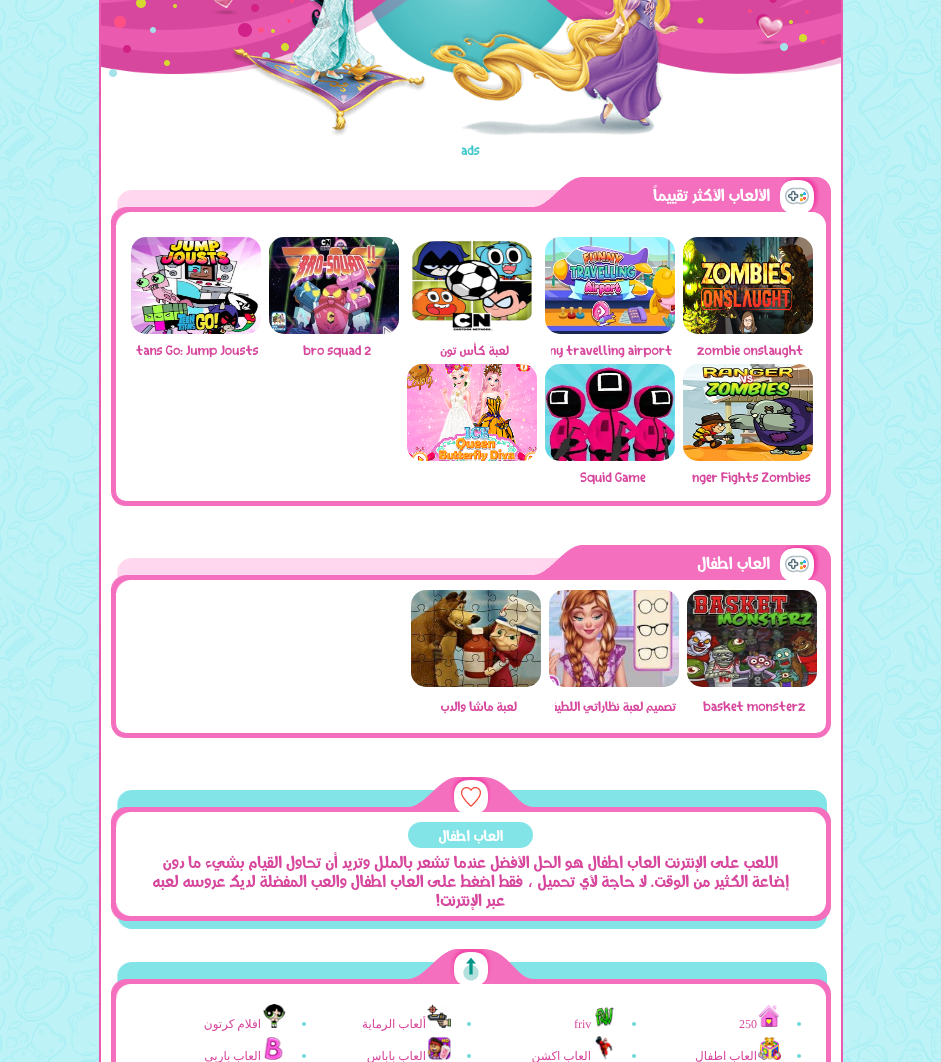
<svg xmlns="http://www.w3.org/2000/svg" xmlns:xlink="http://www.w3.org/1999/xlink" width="941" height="1062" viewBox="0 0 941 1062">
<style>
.cls-1{font:14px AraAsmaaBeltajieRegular;fill:#42c8cc}
.cls-2{font:18px AraAsmaaBeltajieRegular;direction:rtl;fill:#ffffff}
.cls-3{font:14px AraAsmaaBeltajieRegular;fill:#d7479d}
.cls-4{font:14px AraAsmaaBeltajieRegular;direction:rtl;fill:#d7479d}
.cls-5{font:16px AraAsmaaBeltajieRegular;direction:rtl;fill:#ffffff}
.cls-6{font:18px AraAsmaaBeltajieRegular;direction:rtl;fill:#d7479d}
.cls-7{font:18px DejaVu Sans;direction:rtl;fill:#d7479d}
.cls-8{font:12px Liberation Serif;fill:#d7479d}
.cls-9{font:12px DejaVu Sans;direction:rtl;fill:#d7479d}
</style>
<defs>
<clipPath id="clip1"><rect x="551" y="336" width="124" height="28"/></clipPath>
<clipPath id="clip2"><rect x="555" y="689" width="124" height="34"/></clipPath>
</defs>
<rect width="100%" height="100%" fill="#ffffff"/>
<image xlink:href="image0.png" x="0" y="0" width="941" height="1062"/>
<rect fill="#ea5bb0" x="99" y="0" width="2" height="1062"/>
<rect fill="#ea5bb0" x="841" y="0" width="2" height="1062"/>
<rect fill="#ffffff" x="101" y="9" width="740" height="1053"/>
<image xlink:href="image4.png" x="371" y="0" width="198" height="74"/>
<image xlink:href="image1.png" x="101" y="0" width="740" height="74"/>
<image xlink:href="image2.png" x="109" y="0" width="716" height="77"/>
<image xlink:href="image3.png" x="232" y="0" width="448" height="136"/>
<path fill="none" stroke="#f56fbf" stroke-width="5" d="M113.5 179.5H828.5V491C828.5 498 823 503.5 816 503.5H126C119 503.5 113.5 498 113.5 491Z"/>
<image xlink:href="image5.png" x="111" y="177" width="424" height="48"/>
<image xlink:href="image6.png" x="535" y="177" width="296" height="48"/>
<image xlink:href="image7.png" x="111" y="190" width="20" height="35"/>
<image xlink:href="image8.png" x="683" y="237" width="130" height="97"/>
<image xlink:href="image9.png" x="545" y="237" width="130" height="97"/>
<image xlink:href="image10.png" x="412" y="241" width="120" height="90"/>
<image xlink:href="image11.png" x="269" y="237" width="130" height="97"/>
<image xlink:href="image12.png" x="131" y="237" width="130" height="97"/>
<image xlink:href="image13.png" x="407" y="364" width="130" height="97"/>
<image xlink:href="image14.png" x="683" y="364" width="130" height="97"/>
<image xlink:href="image15.png" x="545" y="364" width="130" height="97"/>
<path fill="none" stroke="#f56fbf" stroke-width="5" d="M113.5 547.5H828.5V723C828.5 730 823 735.5 816 735.5H126C119 735.5 113.5 730 113.5 723Z"/>
<image xlink:href="image5.png" x="111" y="545" width="424" height="48"/>
<image xlink:href="image6.png" x="535" y="545" width="296" height="48"/>
<image xlink:href="image7.png" x="111" y="558" width="20" height="35"/>
<image xlink:href="image16.png" x="687" y="590" width="130" height="97"/>
<image xlink:href="image17.png" x="549" y="590" width="130" height="97"/>
<image xlink:href="image18.png" x="411" y="590" width="130" height="97"/>
<rect fill="none" stroke="#f56fbf" stroke-width="5" x="113.5" y="779.5" width="715" height="147"/>
<image xlink:href="image19.png" x="111" y="777" width="720" height="50"/>
<image xlink:href="image20.png" x="813" y="790" width="18" height="37"/>
<image xlink:href="image21.png" x="111" y="790" width="20" height="37"/>
<image xlink:href="image22.png" x="408" y="777" width="125" height="35"/>
<image xlink:href="image23.png" x="131" y="903" width="682" height="26"/>
<image xlink:href="image24.png" x="813" y="903" width="18" height="26"/>
<image xlink:href="image25.png" x="111" y="903" width="20" height="26"/>
<rect fill="#83e4e7" x="408" y="822" width="125" height="26" rx="13"/>
<rect fill="none" stroke="#f56fbf" stroke-width="5" x="113.5" y="951.5" width="715" height="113"/>
<image xlink:href="image19.png" x="111" y="949" width="720" height="50"/>
<image xlink:href="image20.png" x="813" y="962" width="18" height="37"/>
<image xlink:href="image21.png" x="111" y="962" width="20" height="37"/>
<image xlink:href="image26.png" x="408" y="949" width="125" height="35"/>
<circle fill="#71d8db" cx="799" cy="1024" r="2"/>
<image xlink:href="image27.png" x="758" y="1005" width="22" height="22"/>
<circle fill="#71d8db" cx="634" cy="1024" r="2"/>
<image xlink:href="image28.png" x="595" y="1007" width="19" height="20"/>
<circle fill="#71d8db" cx="469" cy="1024" r="2"/>
<image xlink:href="image29.png" x="427" y="1004" width="24" height="24"/>
<circle fill="#71d8db" cx="304" cy="1024" r="2"/>
<image xlink:href="image30.png" x="263" y="1004" width="23" height="24"/>
<circle fill="#71d8db" cx="799" cy="1056" r="2"/>
<image xlink:href="image31.png" x="758" y="1037" width="23" height="23"/>
<circle fill="#71d8db" cx="634" cy="1056" r="2"/>
<image xlink:href="image32.png" x="595" y="1036" width="18" height="24"/>
<circle fill="#71d8db" cx="469" cy="1056" r="2"/>
<image xlink:href="image33.png" x="427" y="1036" width="24" height="24"/>
<circle fill="#71d8db" cx="304" cy="1056" r="2"/>
<image xlink:href="image34.png" x="264" y="1037" width="19" height="23"/>
<text class="cls-1" x="461" y="155">ads</text>
<text class="cls-2" x="770" y="201">الألعاب الأكثر تقييماً</text>
<text class="cls-3" x="697" y="355">zombie onslaught</text>
<g clip-path="url(#clip1)">
<text class="cls-3" x="549" y="355">ny travelling airport</text>
</g>
<text class="cls-4" x="509" y="355">لعبة كأس تون</text>
<text class="cls-3" x="303" y="355">bro squad 2</text>
<text class="cls-3" x="136" y="355">tans Go: Jump Jousts</text>
<text class="cls-3" x="692" y="482">nger Fights Zombies</text>
<text class="cls-3" x="580" y="482">Squid Game</text>
<text class="cls-2" x="770" y="569">العاب اطفال</text>
<text class="cls-3" x="703" y="711">basket monsterz</text>
<g clip-path="url(#clip2)">
<text class="cls-4" x="676" y="711">تصميم لعبة نظاراتي اللطيفة</text>
</g>
<text class="cls-4" x="517" y="711">لعبة ماشا والدب</text>
<text class="cls-5" x="503" y="841">العاب اطفال</text>
<text class="cls-6" x="778" y="868">اللعب على الإنترنت العاب اطفال هو الحل الأفضل عندما تشعر بالملل وتريد أن تحاول القيام بشيء ما دون</text>
<text class="cls-6" x="789" y="887">إضاعة الكثير من الوقت. لا حاجة لأي تحميل</text>
<text class="cls-7" x="533" y="887">،</text>
<text class="cls-6" x="523" y="887">فقط اضغط على العاب اطفال والعب المفضلة لديك عروسه لعبه</text>
<text class="cls-6" x="505" y="906">عبر الإنترنت!</text>
<text class="cls-8" x="739" y="1028">250</text>
<text class="cls-8" x="574" y="1028">friv</text>
<text class="cls-9" x="426" y="1028" word-spacing="-1">ألعاب الرماية</text>
<text class="cls-9" x="261" y="1028" word-spacing="-1">افلام كرتون</text>
<text class="cls-9" x="757" y="1060" word-spacing="-1">العاب اطفال</text>
<text class="cls-9" x="591" y="1060" word-spacing="-1">العاب اكشن</text>
<text class="cls-9" x="426" y="1060" word-spacing="-1">العاب باباس</text>
<text class="cls-9" x="261" y="1060" word-spacing="-1">العاب باربي</text>
</svg>
